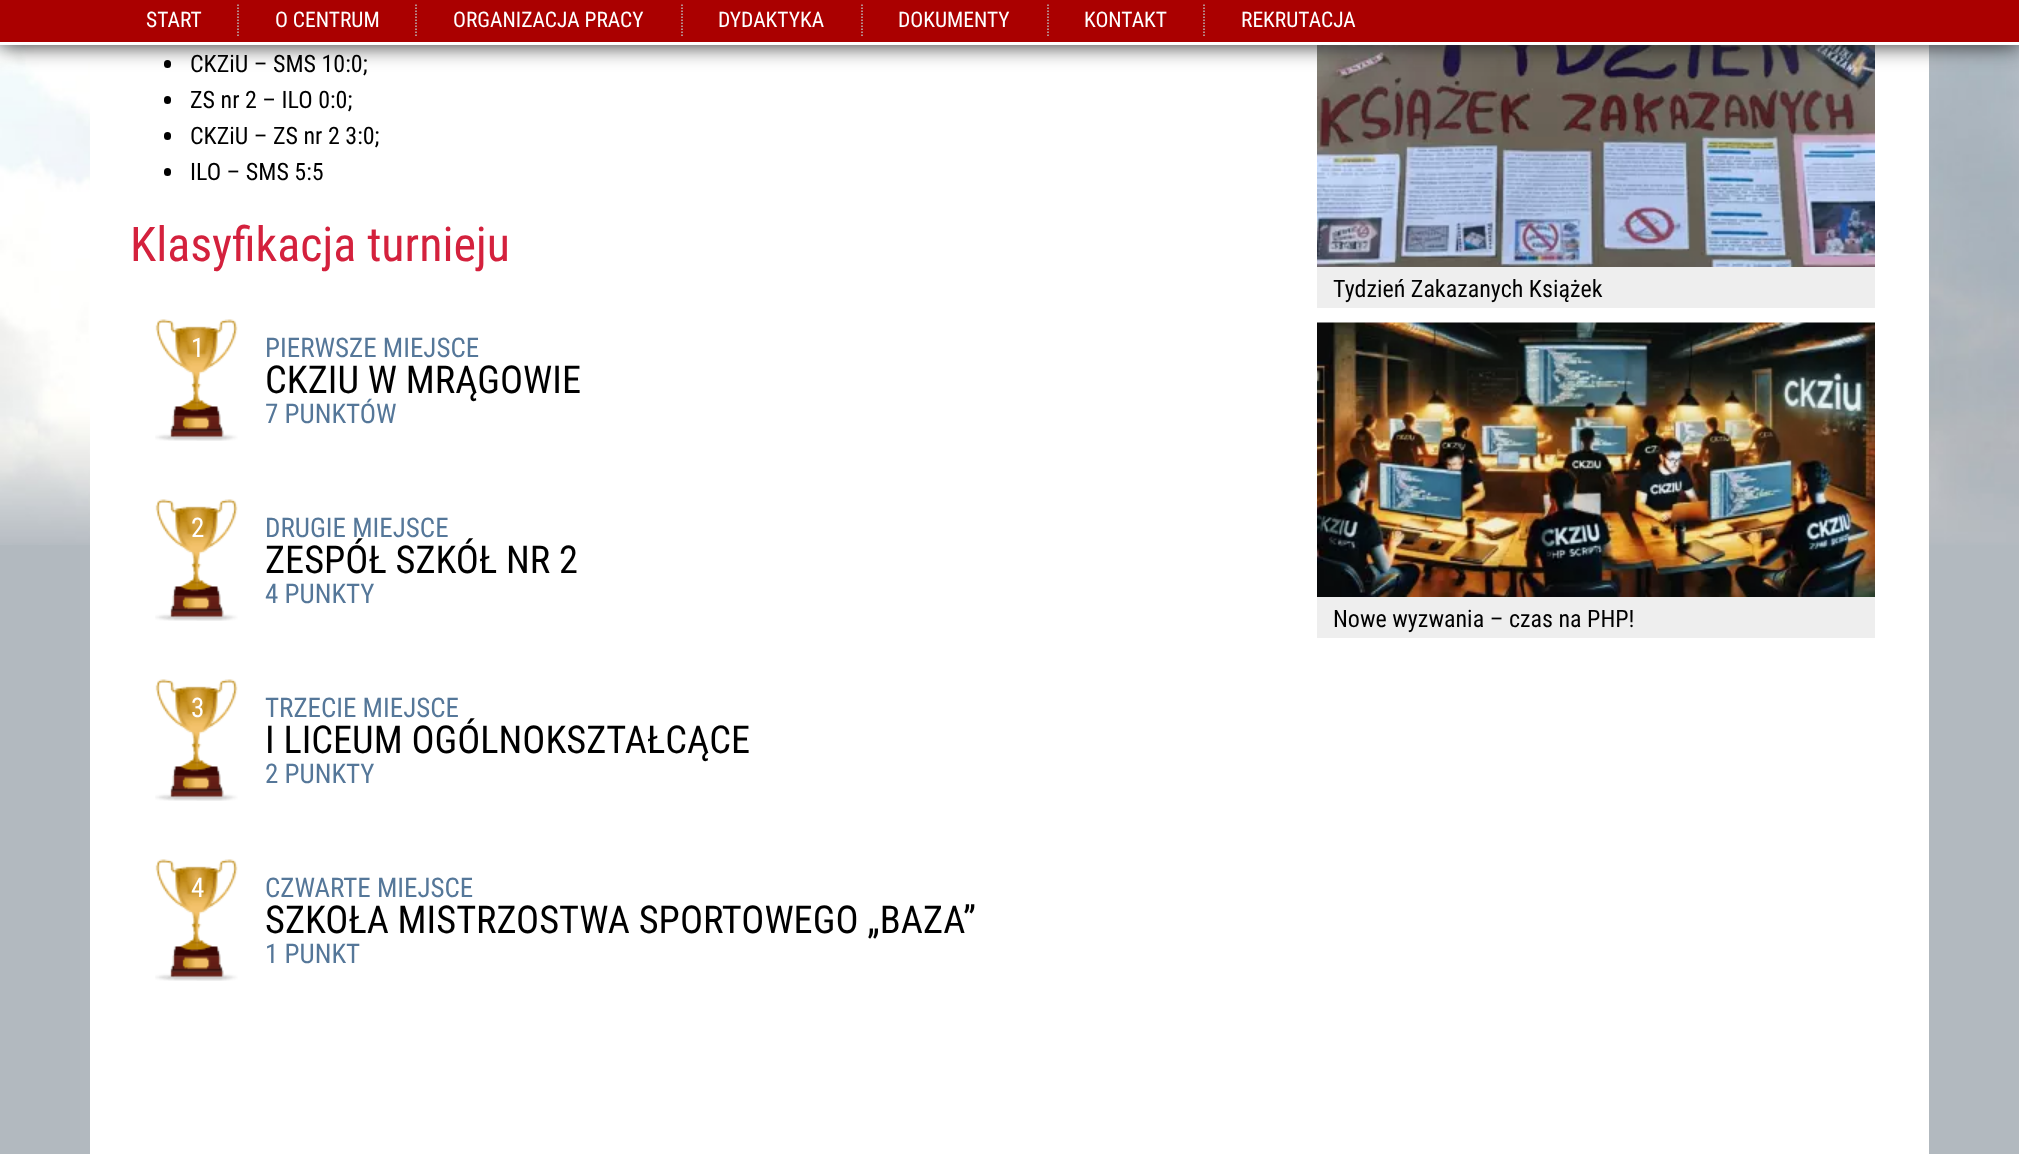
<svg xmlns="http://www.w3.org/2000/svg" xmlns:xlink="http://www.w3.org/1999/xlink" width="2019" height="1154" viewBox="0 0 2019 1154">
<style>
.cls-1{font:21.5px Roboto Condensed;fill:#ffffff}
.cls-2{font:24px Roboto Condensed;fill:#000000}
.cls-3{font:48px Roboto Condensed;fill:#d4213d}
.cls-4{font:27px Roboto Condensed;fill:#ffffff}
.cls-5{font:27px Roboto Condensed;fill:#557799}
.cls-6{font:38.4px Roboto Condensed;fill:#000000}
</style>
<rect width="100%" height="100%" fill="#b2b9bf"/>
<image xlink:href="image0.png" x="0" y="45" width="2019" height="500"/>
<rect fill="#ffffff" x="90" y="45" width="1839" height="1109"/>
<rect fill="#000000" x="164" y="60" width="7" height="8" rx="3.5"/>
<image xlink:href="image2.png" x="1317" y="45" width="558" height="222"/>
<rect fill="#222222" filter="blur(11px)" x="0" y="0" width="2019" height="45"/>
<rect fill="#aa0000" x="0" y="0" width="2019" height="42"/>
<rect fill="#ffffff" x="0" y="42" width="2019" height="3"/>
<path fill="none" stroke="#bbbbbb" stroke-width="1.5" stroke-dasharray="1.5 1.5" d="M238 4.5V37.5"/>
<path fill="none" stroke="#bbbbbb" stroke-width="1.5" stroke-dasharray="1.5 1.5" d="M416 4.5V37.5"/>
<path fill="none" stroke="#bbbbbb" stroke-width="1.5" stroke-dasharray="1.5 1.5" d="M682 4.5V37.5"/>
<path fill="none" stroke="#bbbbbb" stroke-width="1.5" stroke-dasharray="1.5 1.5" d="M862 4.5V37.5"/>
<path fill="none" stroke="#bbbbbb" stroke-width="1.5" stroke-dasharray="1.5 1.5" d="M1048 4.5V37.5"/>
<path fill="none" stroke="#bbbbbb" stroke-width="1.5" stroke-dasharray="1.5 1.5" d="M1204 4.5V37.5"/>
<rect fill="#000000" x="164" y="96" width="7" height="8" rx="3.5"/>
<rect fill="#000000" x="164" y="132" width="7" height="8" rx="3.5"/>
<rect fill="#000000" x="164" y="168" width="7" height="8" rx="3.5"/>
<image xlink:href="image1.png" x="155" y="319" width="83" height="122"/>
<image xlink:href="image1.png" x="155" y="499" width="83" height="122"/>
<image xlink:href="image1.png" x="155" y="679" width="83" height="122"/>
<image xlink:href="image1.png" x="155" y="859" width="83" height="122"/>
<rect fill="#eeeeee" x="1317" y="267" width="558" height="41"/>
<rect fill="#eeeeee" x="1317" y="597" width="558" height="41"/>
<image xlink:href="image3.png" x="1317" y="322" width="558" height="275"/>
<text class="cls-1" x="146" y="27">START</text>
<text class="cls-1" x="275" y="27">O CENTRUM</text>
<text class="cls-1" x="453" y="27">ORGANIZACJA PRACY</text>
<text class="cls-1" x="718" y="27">DYDAKTYKA</text>
<text class="cls-1" x="898" y="27">DOKUMENTY</text>
<text class="cls-1" x="1084" y="27">KONTAKT</text>
<text class="cls-1" x="1241" y="27">REKRUTACJA</text>
<text class="cls-2"><tspan x="190" y="72">CKZiU – SMS 10:0;</tspan><tspan x="190" y="108">ZS nr 2 – ILO 0:0;</tspan><tspan x="190" y="144">CKZiU – ZS nr 2 3:0;</tspan><tspan x="190" y="180">ILO – SMS 5:5</tspan></text>
<text class="cls-3" x="130" y="261">Klasyfikacja turnieju</text>
<text class="cls-4" x="191" y="357">1</text>
<text class="cls-5" x="265" y="357">PIERWSZE MIEJSCE</text>
<text class="cls-6" x="265" y="393">CKZIU W MRĄGOWIE</text>
<text class="cls-5" x="265" y="423">7 PUNKTÓW</text>
<text class="cls-4" x="191" y="537">2</text>
<text class="cls-5" x="265" y="537">DRUGIE MIEJSCE</text>
<text class="cls-6" x="265" y="573">ZESPÓŁ SZKÓŁ NR 2</text>
<text class="cls-5" x="265" y="603">4 PUNKTY</text>
<text class="cls-4" x="191" y="717">3</text>
<text class="cls-5" x="265" y="717">TRZECIE MIEJSCE</text>
<text class="cls-6" x="265" y="753">I LICEUM OGÓLNOKSZTAŁCĄCE</text>
<text class="cls-5" x="265" y="783">2 PUNKTY</text>
<text class="cls-4" x="191" y="897">4</text>
<text class="cls-5" x="265" y="897">CZWARTE MIEJSCE</text>
<text class="cls-6" x="265" y="933">SZKOŁA MISTRZOSTWA SPORTOWEGO „BAZA”</text>
<text class="cls-5" x="265" y="963">1 PUNKT</text>
<text class="cls-2" x="1333" y="297">Tydzień Zakazanych Książek</text>
<text class="cls-2" x="1333" y="627">Nowe wyzwania – czas na PHP!</text>
</svg>
